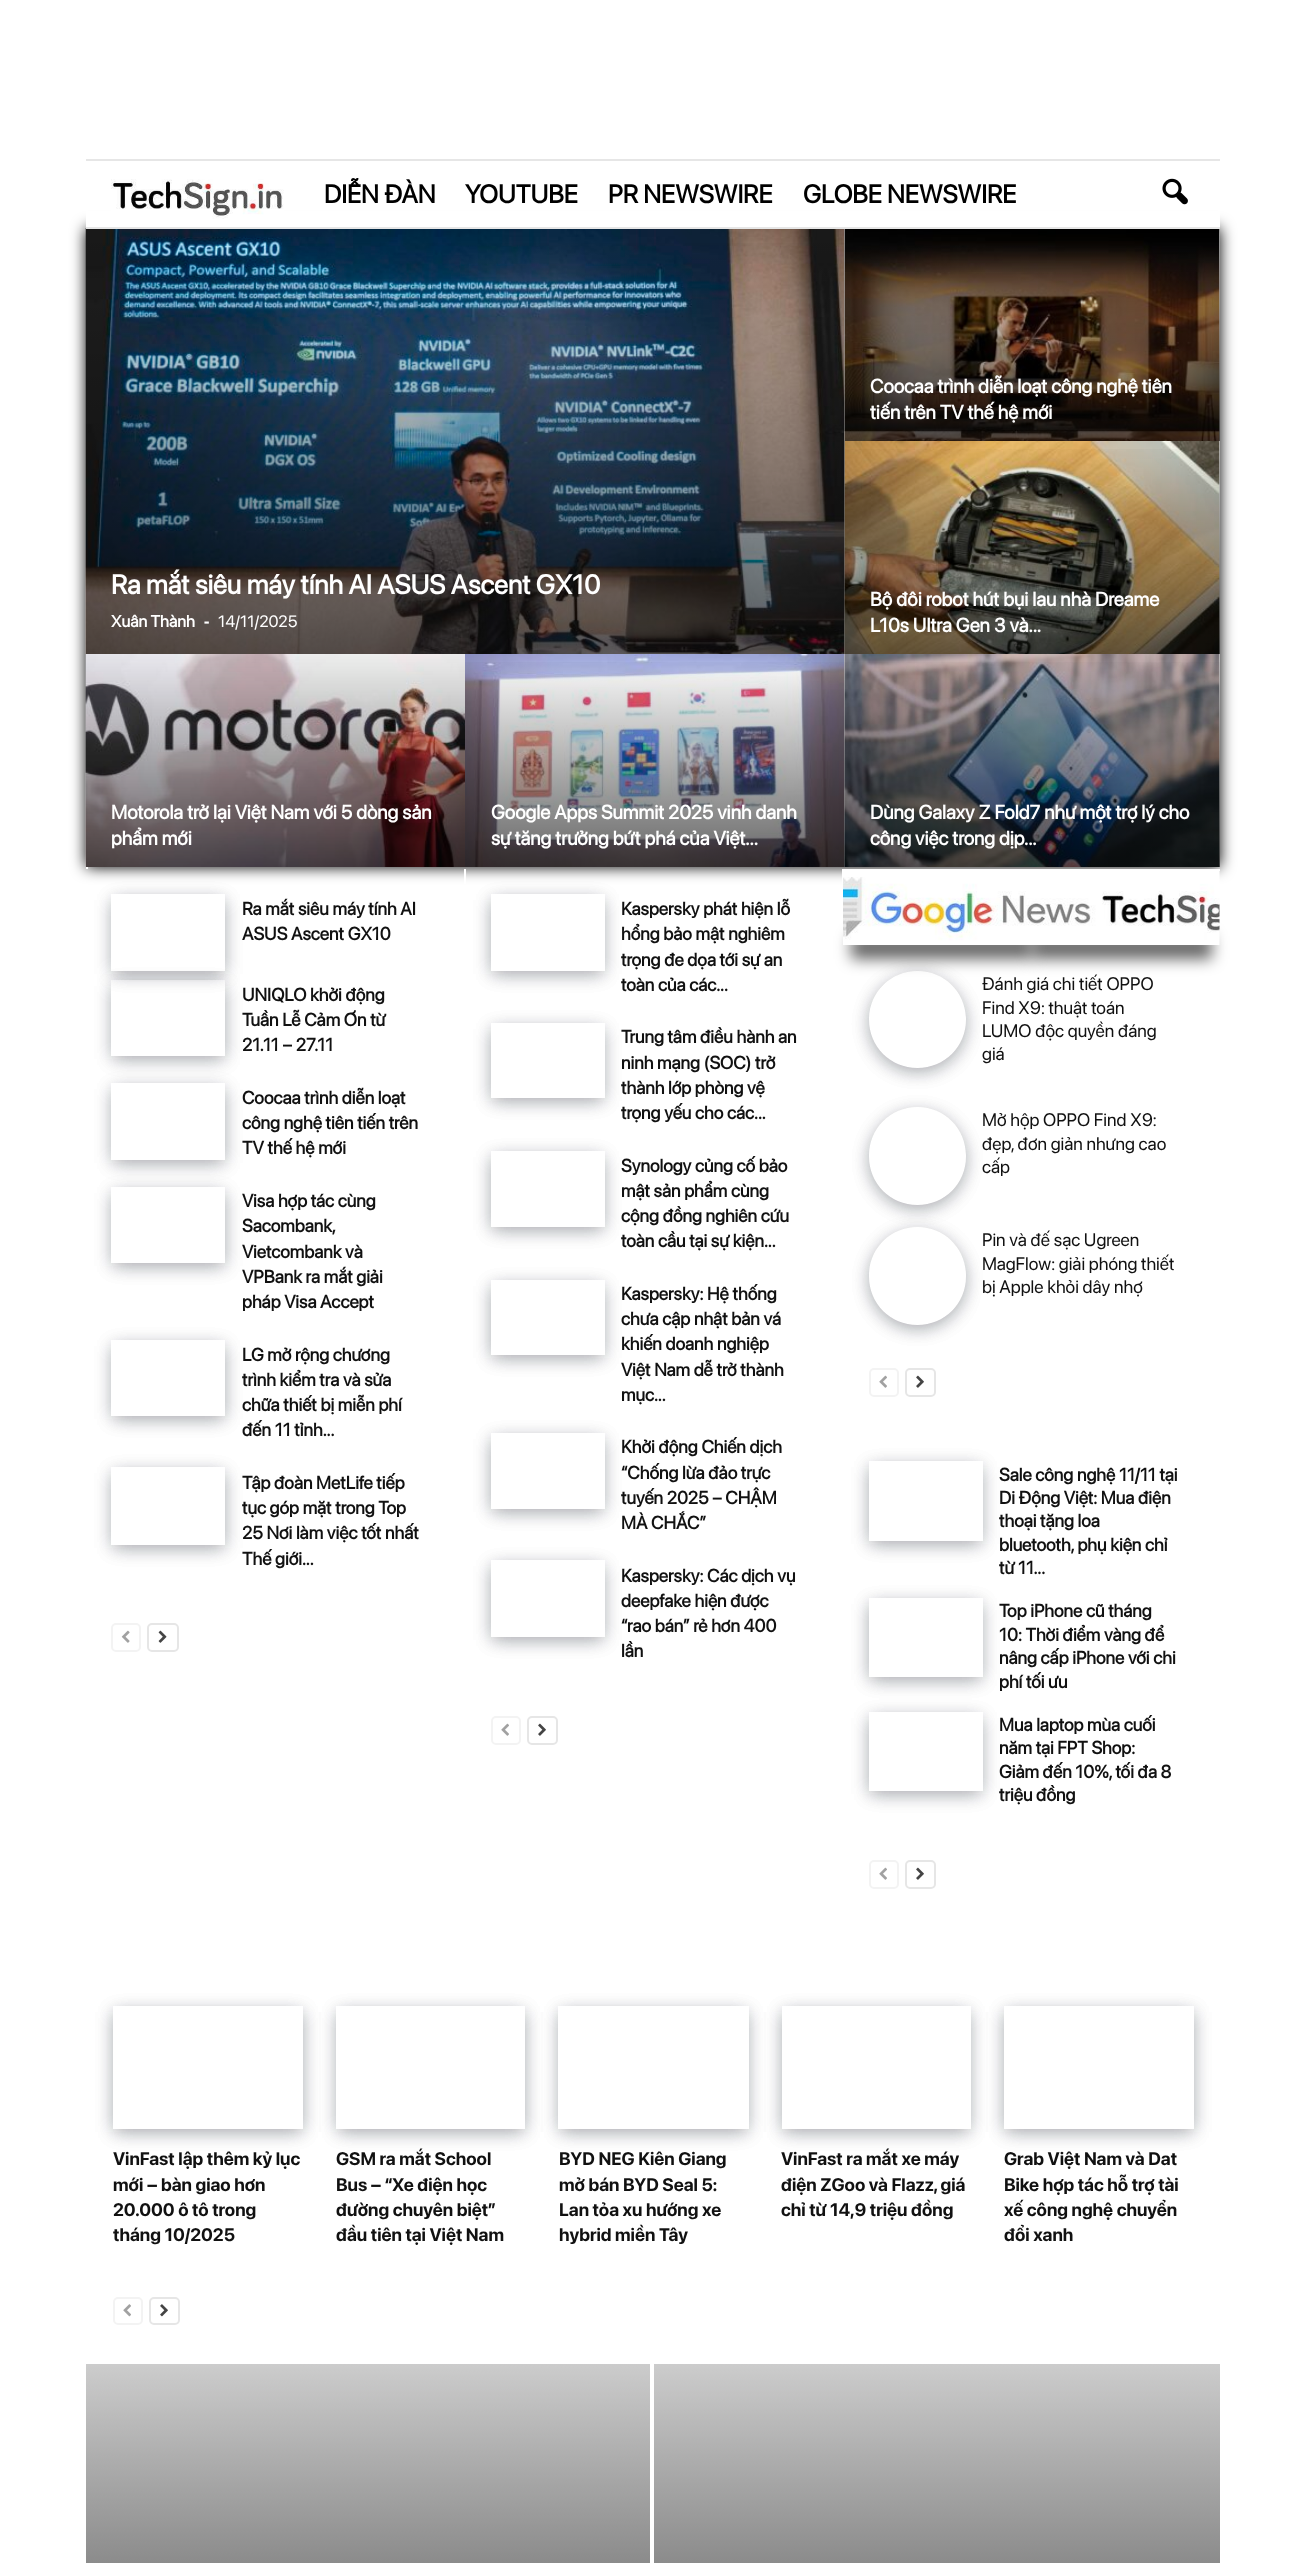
<svg xmlns="http://www.w3.org/2000/svg" xmlns:xlink="http://www.w3.org/1999/xlink" width="1304" height="2563" viewBox="0 0 1304 2563">
<style>
.cls-1{font:bold 25.5px SF Pro Display;fill:#000000}
.cls-2{font:bold 19.5px SF Pro Display;fill:#ffffff}
.cls-3{font:bold 27px SF Pro Display;fill:#ffffff}
.cls-4{font:bold 16.5px SF Pro Display;fill:#ffffff}
.cls-5{font:bold 16.5px Open Sans;fill:#ffffff}
.cls-6{font:16.5px SF Pro Display;fill:#ffffff}
.cls-7{font:bold 18px SF Pro Display;fill:#111111}
.cls-8{font:18px SF Pro Display;fill:#111111}
.cls-9{font:bold 18px 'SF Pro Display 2';fill:#111111}
</style>
<defs>
<linearGradient id="g1" gradientUnits="userSpaceOnUse" x1="465" y1="228" x2="465" y2="654"><stop offset="0" stop-color="#000000" stop-opacity="0"/><stop offset="1" stop-color="#000000" stop-opacity="0.6"/></linearGradient>
<linearGradient id="g2" gradientUnits="userSpaceOnUse" x1="1032" y1="228" x2="1032" y2="441"><stop offset="0" stop-color="#000000" stop-opacity="0"/><stop offset="1" stop-color="#000000" stop-opacity="0.6"/></linearGradient>
<linearGradient id="g3" gradientUnits="userSpaceOnUse" x1="1032" y1="441" x2="1032" y2="654"><stop offset="0" stop-color="#000000" stop-opacity="0"/><stop offset="1" stop-color="#000000" stop-opacity="0.6"/></linearGradient>
<linearGradient id="g4" gradientUnits="userSpaceOnUse" x1="655" y1="654" x2="655" y2="867"><stop offset="0" stop-color="#000000" stop-opacity="0"/><stop offset="1" stop-color="#000000" stop-opacity="0.6"/></linearGradient>
<linearGradient id="g5" gradientUnits="userSpaceOnUse" x1="1032" y1="654" x2="1032" y2="867"><stop offset="0" stop-color="#000000" stop-opacity="0"/><stop offset="1" stop-color="#000000" stop-opacity="0.6"/></linearGradient>
<clipPath id="clip1"><path d="M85 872H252V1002H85ZM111 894H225V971H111Z" clip-rule="evenodd"/></clipPath>
<clipPath id="clip2"><path d="M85 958H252V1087H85ZM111 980H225V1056H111Z" clip-rule="evenodd"/></clipPath>
<clipPath id="clip3"><path d="M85 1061H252V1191H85ZM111 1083H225V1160H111Z" clip-rule="evenodd"/></clipPath>
<clipPath id="clip4"><path d="M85 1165H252V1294H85ZM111 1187H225V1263H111Z" clip-rule="evenodd"/></clipPath>
<clipPath id="clip5"><path d="M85 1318H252V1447H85ZM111 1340H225V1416H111Z" clip-rule="evenodd"/></clipPath>
<clipPath id="clip6"><path d="M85 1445H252V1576H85ZM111 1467H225V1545H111Z" clip-rule="evenodd"/></clipPath>
<clipPath id="clip7"><path d="M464 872H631V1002H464ZM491 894H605V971H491Z" clip-rule="evenodd"/></clipPath>
<clipPath id="clip8"><path d="M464 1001H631V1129H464ZM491 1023H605V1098H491Z" clip-rule="evenodd"/></clipPath>
<clipPath id="clip9"><path d="M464 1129H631V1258H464ZM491 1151H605V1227H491Z" clip-rule="evenodd"/></clipPath>
<clipPath id="clip10"><path d="M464 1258H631V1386H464ZM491 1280H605V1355H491Z" clip-rule="evenodd"/></clipPath>
<clipPath id="clip11"><path d="M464 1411H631V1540H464ZM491 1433H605V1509H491Z" clip-rule="evenodd"/></clipPath>
<clipPath id="clip12"><path d="M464 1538H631V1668H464ZM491 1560H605V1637H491Z" clip-rule="evenodd"/></clipPath>
<clipPath id="clip13"><path d="M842 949H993V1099H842ZM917.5 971C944.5 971 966 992.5 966 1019.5C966 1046.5 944.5 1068 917.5 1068C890.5 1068 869 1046.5 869 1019.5C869 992.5 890.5 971 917.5 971Z" clip-rule="evenodd"/></clipPath>
<clipPath id="clip14"><path d="M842 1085H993V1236H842ZM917.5 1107C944.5 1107 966 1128.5 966 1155.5V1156.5C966 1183.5 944.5 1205 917.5 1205C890.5 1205 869 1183.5 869 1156.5V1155.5C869 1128.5 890.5 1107 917.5 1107Z" clip-rule="evenodd"/></clipPath>
<clipPath id="clip15"><path d="M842 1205H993V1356H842ZM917.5 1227C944.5 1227 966 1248.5 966 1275.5V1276.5C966 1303.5 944.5 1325 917.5 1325C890.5 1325 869 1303.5 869 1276.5V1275.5C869 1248.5 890.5 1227 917.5 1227Z" clip-rule="evenodd"/></clipPath>
<clipPath id="clip16"><path d="M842 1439H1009V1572H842ZM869 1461H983V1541H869Z" clip-rule="evenodd"/></clipPath>
<clipPath id="clip17"><path d="M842 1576H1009V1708H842ZM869 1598H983V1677H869Z" clip-rule="evenodd"/></clipPath>
<clipPath id="clip18"><path d="M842 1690H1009V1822H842ZM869 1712H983V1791H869Z" clip-rule="evenodd"/></clipPath>
<clipPath id="clip19"><path d="M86 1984H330V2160H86ZM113 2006H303V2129H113Z" clip-rule="evenodd"/></clipPath>
<clipPath id="clip20"><path d="M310 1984H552V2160H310ZM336 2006H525V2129H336Z" clip-rule="evenodd"/></clipPath>
<clipPath id="clip21"><path d="M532 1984H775V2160H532ZM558 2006H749V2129H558Z" clip-rule="evenodd"/></clipPath>
<clipPath id="clip22"><path d="M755 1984H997V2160H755ZM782 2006H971V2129H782Z" clip-rule="evenodd"/></clipPath>
<clipPath id="clip23"><path d="M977 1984H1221V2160H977ZM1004 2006H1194V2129H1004Z" clip-rule="evenodd"/></clipPath>
<linearGradient id="g6" gradientUnits="userSpaceOnUse" x1="367" y1="2364" x2="368" y2="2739"><stop offset="0" stop-color="#cccccc"/><stop offset="1" stop-color="#525252"/></linearGradient>
<linearGradient id="g7" gradientUnits="userSpaceOnUse" x1="937" y1="2364" x2="937" y2="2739"><stop offset="0" stop-color="#cccccc"/><stop offset="1" stop-color="#525252"/></linearGradient>
</defs>
<rect width="100%" height="100%" fill="#ffffff"/>
<rect fill="#000000" filter="blur(7.5px)" x="86" y="228" width="1134" height="639"/>
<rect fill="#ffffff" x="86" y="211" width="1134" height="16"/>
<rect fill="#e6e6e6" x="86" y="159" width="1134" height="2"/>
<rect fill="#cccccc" x="844" y="229" width="1" height="638"/>
<image xlink:href="image7.png" x="85" y="228" width="760" height="426"/>
<rect fill="#e6e6e6" x="86" y="227" width="1134" height="2"/>
<image xlink:href="image0.png" x="111" y="179" width="173" height="40"/>
<image xlink:href="image1.png" x="1162" y="178" width="26" height="27"/>
<rect fill="#cccccc" x="1219" y="229" width="1" height="638"/>
<rect fill="url(#g1)" x="86" y="243" width="759" height="411"/>
<image xlink:href="image2.png" x="844" y="229" width="376" height="212"/>
<rect fill="url(#g2)" x="845" y="236" width="375" height="205"/>
<image xlink:href="image3.png" x="844" y="441" width="376" height="213"/>
<rect fill="url(#g3)" x="845" y="449" width="375" height="205"/>
<image xlink:href="image4.png" x="85" y="654" width="380" height="213"/>
<image xlink:href="image5.png" x="465" y="654" width="380" height="213"/>
<rect fill="url(#g4)" x="465" y="662" width="380" height="205"/>
<image xlink:href="image6.png" x="844" y="654" width="376" height="213"/>
<rect fill="url(#g5)" x="845" y="662" width="375" height="205"/>
<rect fill="#ffffff" x="86" y="867" width="2" height="2"/>
<rect fill="#ffffff" x="464" y="869" width="2" height="15"/>
<rect fill="#ffffff" x="842" y="869" width="2" height="15"/>
<g clip-path="url(#clip1)">
<rect fill="#070a19" fill-opacity="0.2" filter="blur(9px)" x="113" y="900" width="111" height="74"/>
<rect fill="#070a19" fill-opacity="0.2" filter="blur(9px)" x="113" y="900" width="111" height="74"/>
</g>
<g clip-path="url(#clip2)">
<rect fill="#070a19" fill-opacity="0.2" filter="blur(9px)" x="113" y="986" width="111" height="73"/>
<rect fill="#070a19" fill-opacity="0.2" filter="blur(9px)" x="113" y="986" width="111" height="73"/>
</g>
<g clip-path="url(#clip3)">
<rect fill="#070a19" fill-opacity="0.2" filter="blur(9px)" x="113" y="1089" width="111" height="74"/>
<rect fill="#070a19" fill-opacity="0.2" filter="blur(9px)" x="113" y="1089" width="111" height="74"/>
</g>
<g clip-path="url(#clip4)">
<rect fill="#070a19" fill-opacity="0.2" filter="blur(9px)" x="113" y="1193" width="111" height="73"/>
<rect fill="#070a19" fill-opacity="0.2" filter="blur(9px)" x="113" y="1193" width="111" height="73"/>
</g>
<g clip-path="url(#clip5)">
<rect fill="#070a19" fill-opacity="0.2" filter="blur(9px)" x="113" y="1346" width="111" height="73"/>
<rect fill="#070a19" fill-opacity="0.2" filter="blur(9px)" x="113" y="1346" width="111" height="73"/>
</g>
<g clip-path="url(#clip6)">
<rect fill="#070a19" fill-opacity="0.2" filter="blur(9px)" x="113" y="1473" width="111" height="75"/>
<rect fill="#070a19" fill-opacity="0.2" filter="blur(9px)" x="113" y="1473" width="111" height="75"/>
</g>
<rect fill="none" stroke="#f3f3f3" stroke-width="2" x="112" y="1624" width="28" height="27" rx="4"/>
<image xlink:href="image8.png" x="121" y="1630" width="9" height="13"/>
<rect fill="none" stroke="#e6e6e6" stroke-width="2" x="148" y="1624" width="30" height="27" rx="4"/>
<image xlink:href="image9.png" x="158" y="1630" width="9" height="13"/>
<g clip-path="url(#clip7)">
<rect fill="#070a19" fill-opacity="0.2" filter="blur(9px)" x="492" y="900" width="111" height="74"/>
<rect fill="#070a19" fill-opacity="0.2" filter="blur(9px)" x="492" y="900" width="111" height="74"/>
</g>
<g clip-path="url(#clip8)">
<rect fill="#070a19" fill-opacity="0.2" filter="blur(9px)" x="492" y="1029" width="111" height="72"/>
<rect fill="#070a19" fill-opacity="0.2" filter="blur(9px)" x="492" y="1029" width="111" height="72"/>
</g>
<g clip-path="url(#clip9)">
<rect fill="#070a19" fill-opacity="0.2" filter="blur(9px)" x="492" y="1157" width="111" height="73"/>
<rect fill="#070a19" fill-opacity="0.2" filter="blur(9px)" x="492" y="1157" width="111" height="73"/>
</g>
<g clip-path="url(#clip10)">
<rect fill="#070a19" fill-opacity="0.2" filter="blur(9px)" x="492" y="1286" width="111" height="72"/>
<rect fill="#070a19" fill-opacity="0.2" filter="blur(9px)" x="492" y="1286" width="111" height="72"/>
</g>
<g clip-path="url(#clip11)">
<rect fill="#070a19" fill-opacity="0.2" filter="blur(9px)" x="492" y="1439" width="111" height="73"/>
<rect fill="#070a19" fill-opacity="0.2" filter="blur(9px)" x="492" y="1439" width="111" height="73"/>
</g>
<g clip-path="url(#clip12)">
<rect fill="#070a19" fill-opacity="0.2" filter="blur(9px)" x="492" y="1566" width="111" height="74"/>
<rect fill="#070a19" fill-opacity="0.2" filter="blur(9px)" x="492" y="1566" width="111" height="74"/>
</g>
<rect fill="none" stroke="#f3f3f3" stroke-width="2" x="492" y="1717" width="28" height="27" rx="4"/>
<image xlink:href="image10.png" x="501" y="1723" width="8" height="13"/>
<rect fill="none" stroke="#e6e6e6" stroke-width="2" x="528" y="1717" width="29" height="27" rx="4"/>
<image xlink:href="image11.png" x="538" y="1723" width="8" height="13"/>
<rect fill="#ffffff" x="843" y="869" width="377" height="2"/>
<rect fill="#000000" fill-opacity="0.6" filter="blur(7.5px)" x="851" y="936" width="181" height="23"/>
<rect fill="#000000" fill-opacity="0.6" filter="blur(7.5px)" x="1032" y="936" width="180" height="23"/>
<image xlink:href="image12.png" x="843" y="871" width="377" height="74"/>
<g clip-path="url(#clip13)">
<rect fill="#070a19" fill-opacity="0.2" filter="blur(9px)" x="870" y="977" width="95" height="94" rx="47"/>
<rect fill="#070a19" fill-opacity="0.2" filter="blur(9px)" x="870" y="977" width="95" height="94" rx="47"/>
</g>
<g clip-path="url(#clip14)">
<rect fill="#070a19" fill-opacity="0.2" filter="blur(9px)" x="870" y="1113" width="95" height="95" rx="47.5"/>
<rect fill="#070a19" fill-opacity="0.2" filter="blur(9px)" x="870" y="1113" width="95" height="95" rx="47.5"/>
</g>
<g clip-path="url(#clip15)">
<rect fill="#070a19" fill-opacity="0.2" filter="blur(9px)" x="870" y="1233" width="95" height="95" rx="47.5"/>
<rect fill="#070a19" fill-opacity="0.2" filter="blur(9px)" x="870" y="1233" width="95" height="95" rx="47.5"/>
</g>
<rect fill="none" stroke="#f3f3f3" stroke-width="2" x="870" y="1369" width="28" height="27" rx="4"/>
<image xlink:href="image10.png" x="879" y="1375" width="8" height="13"/>
<rect fill="none" stroke="#e6e6e6" stroke-width="2" x="906" y="1369" width="29" height="27" rx="4"/>
<image xlink:href="image11.png" x="916" y="1375" width="8" height="13"/>
<g clip-path="url(#clip16)">
<rect fill="#070a19" fill-opacity="0.2" filter="blur(9px)" x="870" y="1467" width="111" height="77"/>
<rect fill="#070a19" fill-opacity="0.2" filter="blur(9px)" x="870" y="1467" width="111" height="77"/>
</g>
<g clip-path="url(#clip17)">
<rect fill="#070a19" fill-opacity="0.2" filter="blur(9px)" x="870" y="1604" width="111" height="76"/>
<rect fill="#070a19" fill-opacity="0.2" filter="blur(9px)" x="870" y="1604" width="111" height="76"/>
</g>
<g clip-path="url(#clip18)">
<rect fill="#070a19" fill-opacity="0.2" filter="blur(9px)" x="870" y="1718" width="111" height="76"/>
<rect fill="#070a19" fill-opacity="0.2" filter="blur(9px)" x="870" y="1718" width="111" height="76"/>
</g>
<rect fill="none" stroke="#f3f3f3" stroke-width="2" x="870" y="1861" width="28" height="27" rx="4"/>
<image xlink:href="image10.png" x="879" y="1867" width="8" height="13"/>
<rect fill="none" stroke="#e6e6e6" stroke-width="2" x="906" y="1861" width="29" height="27" rx="4"/>
<image xlink:href="image11.png" x="916" y="1867" width="8" height="13"/>
<g clip-path="url(#clip19)">
<rect fill="#070a19" fill-opacity="0.2" filter="blur(9px)" x="114" y="2012" width="188" height="120"/>
<rect fill="#070a19" fill-opacity="0.2" filter="blur(9px)" x="114" y="2012" width="188" height="120"/>
</g>
<g clip-path="url(#clip20)">
<rect fill="#070a19" fill-opacity="0.2" filter="blur(9px)" x="338" y="2012" width="186" height="120"/>
<rect fill="#070a19" fill-opacity="0.2" filter="blur(9px)" x="338" y="2012" width="186" height="120"/>
</g>
<g clip-path="url(#clip21)">
<rect fill="#070a19" fill-opacity="0.2" filter="blur(9px)" x="560" y="2012" width="187" height="120"/>
<rect fill="#070a19" fill-opacity="0.2" filter="blur(9px)" x="560" y="2012" width="187" height="120"/>
</g>
<g clip-path="url(#clip22)">
<rect fill="#070a19" fill-opacity="0.2" filter="blur(9px)" x="783" y="2012" width="186" height="120"/>
<rect fill="#070a19" fill-opacity="0.2" filter="blur(9px)" x="783" y="2012" width="186" height="120"/>
</g>
<g clip-path="url(#clip23)">
<rect fill="#070a19" fill-opacity="0.2" filter="blur(9px)" x="1005" y="2012" width="188" height="120"/>
<rect fill="#070a19" fill-opacity="0.2" filter="blur(9px)" x="1005" y="2012" width="188" height="120"/>
</g>
<rect fill="none" stroke="#f3f3f3" stroke-width="2" x="114" y="2298" width="28" height="26" rx="4"/>
<image xlink:href="image13.png" x="123" y="2304" width="8" height="13"/>
<rect fill="none" stroke="#e6e6e6" stroke-width="2" x="150" y="2298" width="29" height="26" rx="4"/>
<image xlink:href="image14.png" x="160" y="2304" width="8" height="13"/>
<rect fill="url(#g6)" x="86" y="2364" width="564" height="199"/>
<rect fill="url(#g7)" x="654" y="2364" width="566" height="199"/>
<text class="cls-1" x="324" y="203">DIỄN ĐÀN</text>
<text class="cls-1" x="465" y="203">YOUTUBE</text>
<text class="cls-1" x="608" y="203">PR NEWSWIRE</text>
<text class="cls-1" x="803" y="203">GLOBE NEWSWIRE</text>
<text class="cls-2"><tspan x="870" y="393">Coocaa trình diễn loạt công nghệ tiên</tspan><tspan x="870" y="419">tiến trên TV thế hệ mới</tspan></text>
<text class="cls-2"><tspan x="870" y="606">Bộ đôi robot hút bụi lau nhà Dreame</tspan><tspan x="870" y="632">L10s Ultra Gen 3 và...</tspan></text>
<text class="cls-2"><tspan x="111" y="819">Motorola trở lại Việt Nam với 5 dòng sản</tspan><tspan x="111" y="845">phẩm mới</tspan></text>
<text class="cls-2"><tspan x="491" y="819">Google Apps Summit 2025 vinh danh</tspan><tspan x="491" y="845">sự tăng trưởng bứt phá của Việt...</tspan></text>
<text class="cls-2"><tspan x="870" y="819">Dùng Galaxy Z Fold7 như một trợ lý cho</tspan><tspan x="870" y="845">công việc trong dịp...</tspan></text>
<text class="cls-3" x="111" y="594">Ra mắt siêu máy tính AI ASUS Ascent GX10</text>
<text class="cls-4" x="111" y="627">Xuân Thành</text>
<text class="cls-5" x="204" y="627">-</text>
<text class="cls-6" x="218" y="627">14/11/2025</text>
<text class="cls-7"><tspan x="242" y="915">Ra mắt siêu máy tính AI</tspan><tspan x="242" y="940">ASUS Ascent GX10</tspan></text>
<text class="cls-7"><tspan x="242" y="1001">UNIQLO khởi động</tspan><tspan x="242" y="1026">Tuần Lễ Cảm Ơn từ</tspan><tspan x="242" y="1051">21.11 – 27.11</tspan></text>
<text class="cls-7"><tspan x="242" y="1104">Coocaa trình diễn loạt</tspan><tspan x="242" y="1129">công nghệ tiên tiến trên</tspan><tspan x="242" y="1154">TV thế hệ mới</tspan></text>
<text class="cls-7"><tspan x="242" y="1207">Visa hợp tác cùng</tspan><tspan x="242" y="1232">Sacombank,</tspan><tspan x="242" y="1258">Vietcombank và</tspan><tspan x="242" y="1283">VPBank ra mắt giải</tspan><tspan x="242" y="1308">pháp Visa Accept</tspan></text>
<text class="cls-7"><tspan x="242" y="1361">LG mở rộng chương</tspan><tspan x="242" y="1386">trình kiểm tra và sửa</tspan><tspan x="242" y="1411">chữa thiết bị miễn phí</tspan><tspan x="242" y="1436">đến 11 tỉnh...</tspan></text>
<text class="cls-7"><tspan x="242" y="1489">Tập đoàn MetLife tiếp</tspan><tspan x="242" y="1514">tục góp mặt trong Top</tspan><tspan x="242" y="1539">25 Nơi làm việc tốt nhất</tspan><tspan x="242" y="1565">Thế giới...</tspan></text>
<text class="cls-7"><tspan x="621" y="915">Kaspersky phát hiện lỗ</tspan><tspan x="621" y="940">hổng bảo mật nghiêm</tspan><tspan x="621" y="966">trọng đe dọa tới sự an</tspan><tspan x="621" y="991">toàn của các...</tspan></text>
<text class="cls-7"><tspan x="621" y="1043">Trung tâm điều hành an</tspan><tspan x="621" y="1069">ninh mạng (SOC) trở</tspan><tspan x="621" y="1094">thành lớp phòng vệ</tspan><tspan x="621" y="1119">trọng yếu cho các...</tspan></text>
<text class="cls-7"><tspan x="621" y="1172">Synology củng cố bảo</tspan><tspan x="621" y="1197">mật sản phẩm cùng</tspan><tspan x="621" y="1222">cộng đồng nghiên cứu</tspan><tspan x="621" y="1247">toàn cầu tại sự kiện...</tspan></text>
<text class="cls-7"><tspan x="621" y="1300">Kaspersky: Hệ thống</tspan><tspan x="621" y="1325">chưa cập nhật bản vá</tspan><tspan x="621" y="1350">khiến doanh nghiệp</tspan><tspan x="621" y="1376">Việt Nam dễ trở thành</tspan><tspan x="621" y="1401">mục...</tspan></text>
<text class="cls-7"><tspan x="621" y="1453">Khởi động Chiến dịch</tspan><tspan x="621" y="1479">“Chống lừa đảo trực</tspan><tspan x="621" y="1504">tuyến 2025 – CHẬM</tspan><tspan x="621" y="1529">MÀ CHẮC”</tspan></text>
<text class="cls-7"><tspan x="621" y="1582">Kaspersky: Các dịch vụ</tspan><tspan x="621" y="1607">deepfake hiện được</tspan><tspan x="621" y="1632">“rao bán” rẻ hơn 400</tspan><tspan x="621" y="1657">lần</tspan></text>
<text class="cls-8"><tspan x="982" y="990">Đánh giá chi tiết OPPO</tspan><tspan x="982" y="1014">Find X9: thuật toán</tspan><tspan x="982" y="1037">LUMO độc quyền đáng</tspan><tspan x="982" y="1060">giá</tspan></text>
<text class="cls-8"><tspan x="982" y="1126">Mở hộp OPPO Find X9:</tspan><tspan x="982" y="1150">đẹp, đơn giản nhưng cao</tspan><tspan x="982" y="1173">cấp</tspan></text>
<text class="cls-8"><tspan x="982" y="1246">Pin và đế sạc Ugreen</tspan><tspan x="982" y="1270">MagFlow: giải phóng thiết</tspan><tspan x="982" y="1293">bị Apple khỏi dây nhợ</tspan></text>
<text class="cls-7"><tspan x="999" y="1481">Sale công nghệ 11/11 tại</tspan><tspan x="999" y="1504">Di Động Việt: Mua điện</tspan><tspan x="999" y="1527">thoại tặng loa</tspan><tspan x="999" y="1551">bluetooth, phụ kiện chỉ</tspan><tspan x="999" y="1574">từ 11...</tspan></text>
<text class="cls-7"><tspan x="999" y="1617">Top iPhone cũ tháng</tspan><tspan x="999" y="1641">10: Thời điểm vàng để</tspan><tspan x="999" y="1664">nâng cấp iPhone với chi</tspan><tspan x="999" y="1688">phí tối ưu</tspan></text>
<text class="cls-7"><tspan x="999" y="1731">Mua laptop mùa cuối</tspan><tspan x="999" y="1754">năm tại FPT Shop:</tspan><tspan x="999" y="1778">Giảm đến 10%, tối đa 8</tspan><tspan x="999" y="1801">triệu đồng</tspan></text>
<text class="cls-9"><tspan x="113" y="2165">VinFast lập thêm kỷ lục</tspan><tspan x="113" y="2191">mới – bàn giao hơn</tspan><tspan x="113" y="2216">20.000 ô tô trong</tspan><tspan x="113" y="2241">tháng 10/2025</tspan></text>
<text class="cls-9"><tspan x="336" y="2165">GSM ra mắt School</tspan><tspan x="336" y="2191">Bus – “Xe điện học</tspan><tspan x="336" y="2216">đường chuyên biệt”</tspan><tspan x="336" y="2241">đầu tiên tại Việt Nam</tspan></text>
<text class="cls-9"><tspan x="559" y="2165">BYD NEG Kiên Giang</tspan><tspan x="559" y="2191">mở bán BYD Seal 5:</tspan><tspan x="559" y="2216">Lan tỏa xu hướng xe</tspan><tspan x="559" y="2241">hybrid miền Tây</tspan></text>
<text class="cls-9"><tspan x="781" y="2165">VinFast ra mắt xe máy</tspan><tspan x="781" y="2191">điện ZGoo và Flazz, giá</tspan><tspan x="781" y="2216">chỉ từ 14,9 triệu đồng</tspan></text>
<text class="cls-9"><tspan x="1004" y="2165">Grab Việt Nam và Dat</tspan><tspan x="1004" y="2191">Bike hợp tác hỗ trợ tài</tspan><tspan x="1004" y="2216">xế công nghệ chuyển</tspan><tspan x="1004" y="2241">đổi xanh</tspan></text>
</svg>
